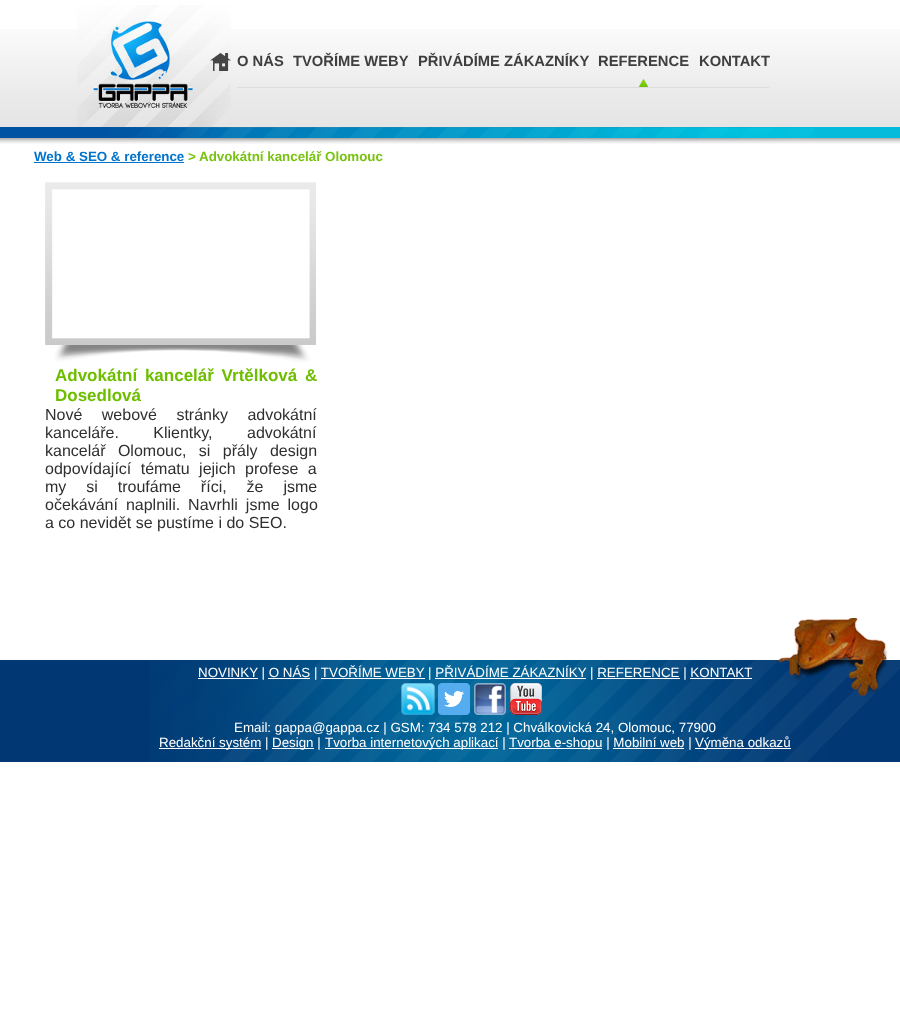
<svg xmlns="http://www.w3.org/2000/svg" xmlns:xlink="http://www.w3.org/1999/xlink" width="900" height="1029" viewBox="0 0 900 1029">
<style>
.cls-1{font:bold 14.75px Liberation Sans;fill:#3e3e3e}
.cls-2{font:bold 13.35px Liberation Sans;fill:#0073cc}
.cls-3{font:bold 13.35px Liberation Sans;fill:#78c211}
.cls-4{font:bold 17px Liberation Sans;fill:#6ebe00}
.cls-5{font:16px Liberation Sans;fill:#2f2f2f}
.cls-6{font:13.35px Liberation Sans;fill:#ffffff}
</style>
<rect width="100%" height="100%" fill="#ffffff"/>
<image xlink:href="image0.png" x="0" y="29" width="900" height="98"/>
<image xlink:href="image1.png" x="0" y="127" width="450" height="17"/>
<image xlink:href="image2.png" x="450" y="127" width="450" height="17"/>
<image xlink:href="image3.png" x="77" y="5" width="154" height="122"/>
<image xlink:href="image4.png" x="90" y="20" width="105" height="89"/>
<image xlink:href="image5.png" x="210" y="53" width="21" height="18"/>
<rect fill="#dcdcdc" x="237" y="87" width="532" height="1"/>
<image xlink:href="image6.png" x="639" y="79" width="9" height="8"/>
<image xlink:href="image7.png" x="108" y="127" width="706" height="14"/>
<rect fill="#0073cc" x="34" y="162" width="150" height="1"/>
<image xlink:href="image8.png" x="45" y="182" width="271" height="180"/>
<rect fill="#013773" x="0" y="660" width="900" height="102"/>
<image xlink:href="image9.png" x="150" y="618" width="750" height="144"/>
<rect fill="#ffffff" x="198" y="678" width="60" height="1"/>
<rect fill="#ffffff" x="268" y="678" width="42" height="1"/>
<rect fill="#ffffff" x="321" y="678" width="104" height="1"/>
<rect fill="#ffffff" x="435" y="678" width="151" height="1"/>
<rect fill="#ffffff" x="597" y="678" width="83" height="1"/>
<rect fill="#ffffff" x="690" y="678" width="62" height="1"/>
<image xlink:href="image10.png" x="401" y="683" width="34" height="32"/>
<image xlink:href="image11.png" x="438" y="683" width="32" height="32"/>
<image xlink:href="image12.png" x="474" y="683" width="32" height="32"/>
<image xlink:href="image13.png" x="510" y="683" width="32" height="32"/>
<rect fill="#ffffff" x="159" y="748" width="102" height="1"/>
<rect fill="#ffffff" x="272" y="748" width="42" height="1"/>
<rect fill="#ffffff" x="325" y="748" width="173" height="1"/>
<rect fill="#ffffff" x="509" y="748" width="93" height="1"/>
<rect fill="#ffffff" x="695" y="748" width="96" height="1"/>
<rect fill="#ffffff" x="613" y="748" width="71" height="1"/>
<text class="cls-1" x="237" y="66">O NÁS</text>
<text class="cls-1" x="293" y="66">TVOŘÍME WEBY</text>
<text class="cls-1" x="418" y="66">PŘIVÁDÍME ZÁKAZNÍKY</text>
<text class="cls-1" x="598" y="66">REFERENCE</text>
<text class="cls-1" x="699" y="66">KONTAKT</text>
<text class="cls-2" x="34" y="161">Web &amp; SEO &amp; reference</text>
<text class="cls-3" x="188" y="161">&gt; Advokátní kancelář Olomouc</text>
<text class="cls-4"><tspan x="55" y="381" word-spacing="3">Advokátní kancelář Vrtělková &amp;</tspan><tspan x="55" y="401">Dosedlová</tspan></text>
<text class="cls-5"><tspan x="45" y="420" word-spacing="15">Nové webové stránky advokátní</tspan><tspan x="45" y="438" word-spacing="30">kanceláře. Klientky, advokátní</tspan><tspan x="45" y="456" word-spacing="8">kancelář Olomouc, si přály design</tspan><tspan x="45" y="474" word-spacing="5">odpovídající tématu jejich profese a</tspan><tspan x="45" y="492" word-spacing="15.5">my si troufáme říci, že jsme</tspan><tspan x="45" y="510" word-spacing="3.5">očekávání naplnili. Navrhli jsme logo</tspan><tspan x="45" y="528">a co nevidět se pustíme i do SEO.</tspan></text>
<text class="cls-6" x="198" y="677">NOVINKY | O NÁS | TVOŘÍME WEBY | PŘIVÁDÍME ZÁKAZNÍKY | REFERENCE | KONTAKT</text>
<text class="cls-6" x="234" y="732">Email: gappa@gappa.cz | GSM: 734 578 212 | Chválkovická 24, Olomouc, 77900</text>
<text class="cls-6" x="159" y="747">Redakční systém |</text>
<text class="cls-6" x="272" y="747">Design |</text>
<text class="cls-6" x="325" y="747">Tvorba internetových aplikací |</text>
<text class="cls-6" x="509" y="747">Tvorba e-shopu | Mobilní web |</text>
<text class="cls-6" x="695" y="747">Výměna odkazů</text>
</svg>
